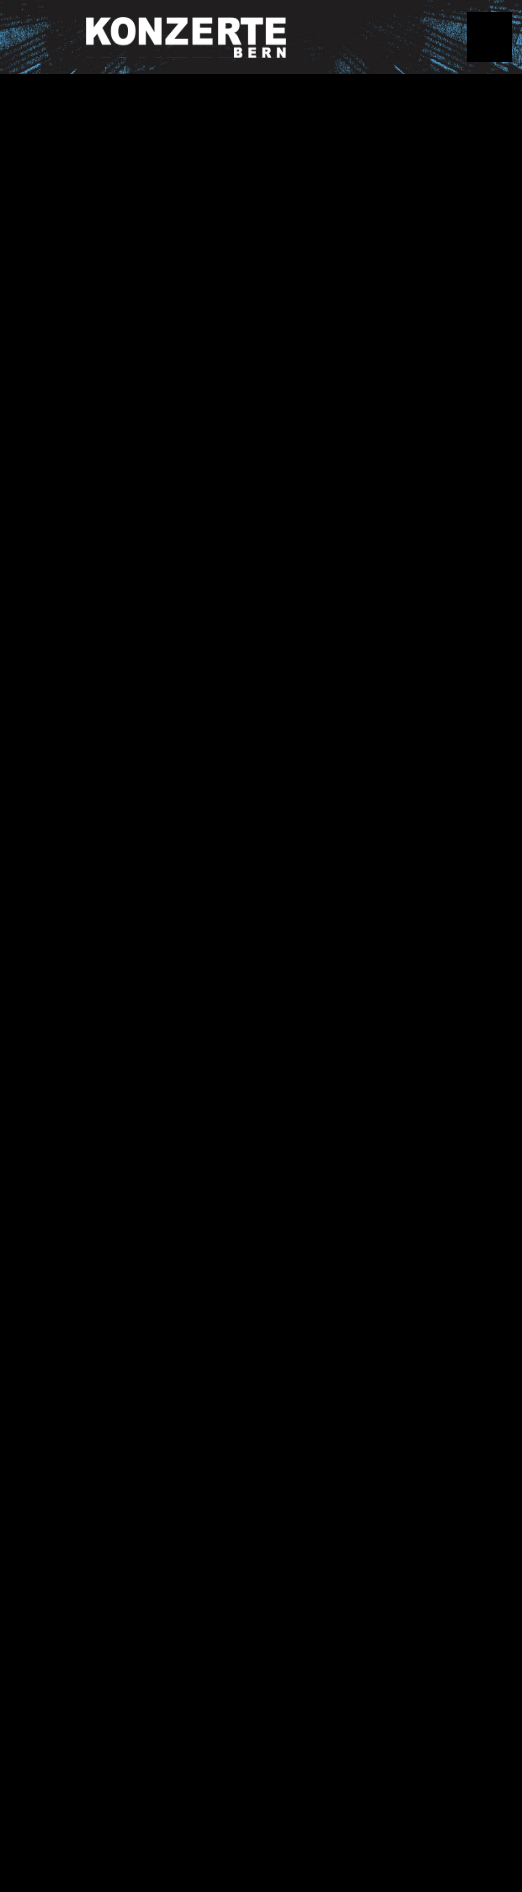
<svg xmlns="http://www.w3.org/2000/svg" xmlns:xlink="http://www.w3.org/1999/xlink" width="522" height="1892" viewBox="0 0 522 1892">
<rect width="100%" height="100%" fill="#000000"/>
<image xlink:href="image0.png" x="0" y="0" width="522" height="74"/>
<image xlink:href="image1.png" x="86" y="17" width="200" height="41"/>
<rect fill="#000000" x="467" y="12" width="45" height="50"/>
</svg>
